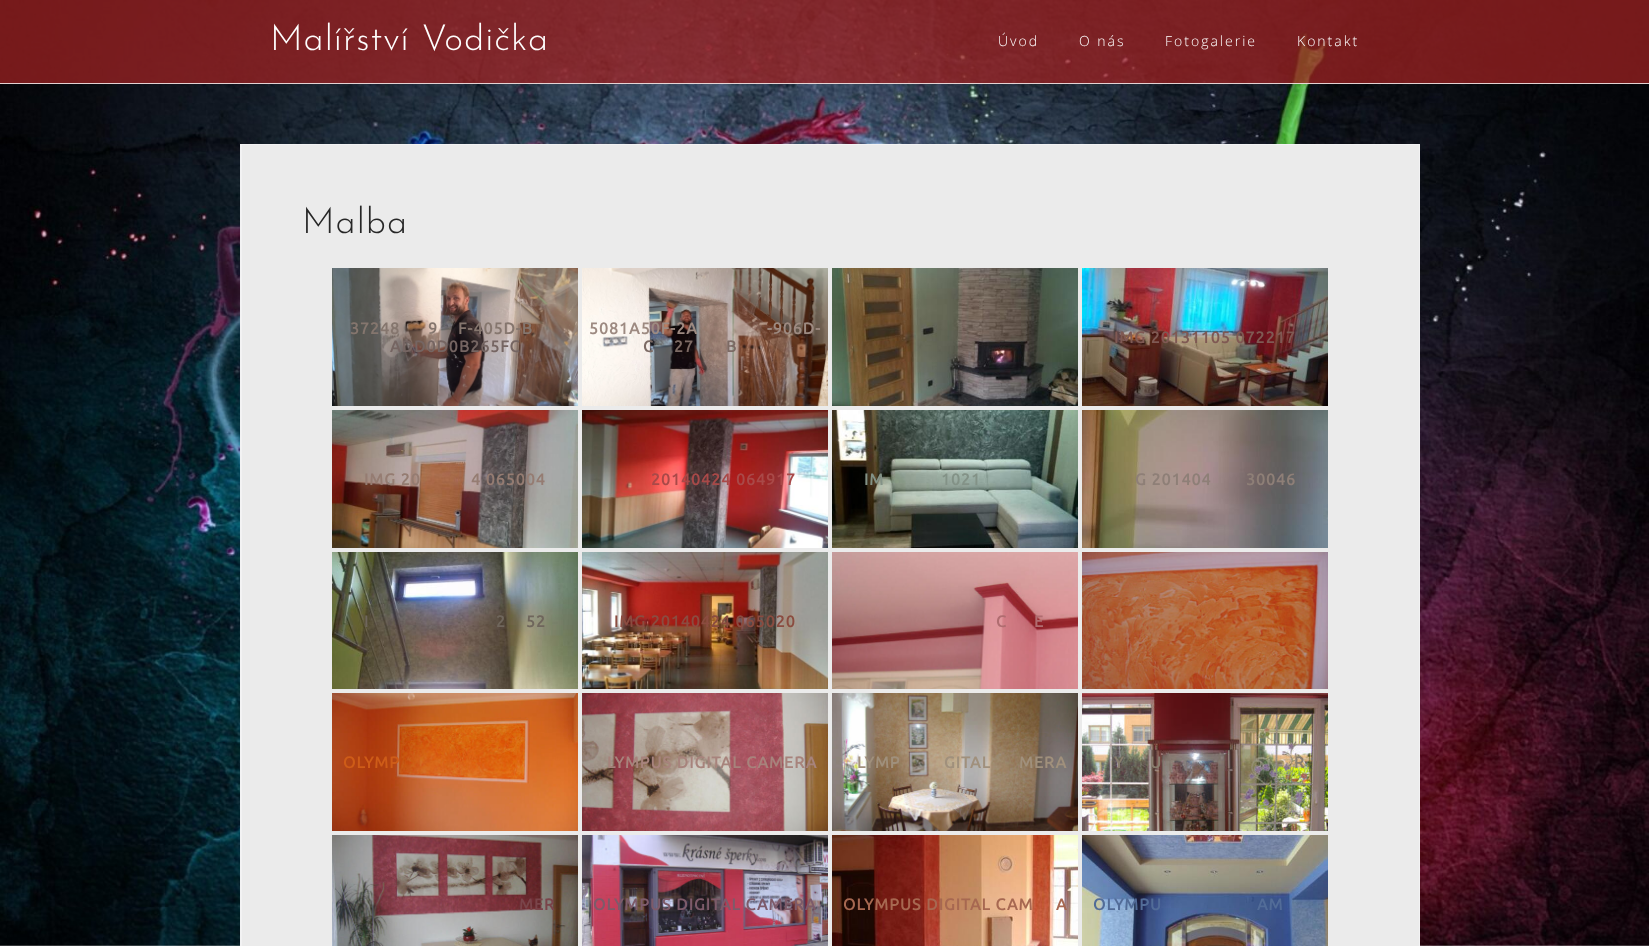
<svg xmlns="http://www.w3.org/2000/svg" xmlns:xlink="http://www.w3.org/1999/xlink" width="1649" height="946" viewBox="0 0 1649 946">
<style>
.cls-1{font:100 36px Josefin Sans;letter-spacing:1px;fill:#ffffff}
.cls-2{font:300 14px Open Sans;letter-spacing:2px;fill:#ffffff}
.cls-3{font:100 36px Josefin Sans;letter-spacing:1px;fill:#272727}
.cls-4{font:bold 16px Ubuntu;letter-spacing:1px;fill:#85766e}
.cls-5{font:bold 16px Ubuntu;letter-spacing:1px;fill:#756562}
.cls-6{font:bold 16px Ubuntu;letter-spacing:1px;fill:#9d8a81}
.cls-7{font:bold 16px Ubuntu;letter-spacing:1px;fill:#7c6a64}
.cls-8{font:bold 16px Ubuntu;letter-spacing:1px;fill:#7f5953}
.cls-9{font:bold 16px Ubuntu;letter-spacing:1px;fill:#957c72}
.cls-10{font:bold 16px Ubuntu;letter-spacing:1px;fill:#a94948}
.cls-11{font:bold 16px Ubuntu;letter-spacing:1px;fill:#839287}
.cls-12{font:bold 16px Ubuntu;letter-spacing:1px;fill:#8e7f77}
.cls-13{font:bold 16px Ubuntu;letter-spacing:1px;fill:#6f665c}
.cls-14{font:bold 16px Ubuntu;letter-spacing:1px;fill:#8b4c40}
.cls-15{font:bold 16px Ubuntu;letter-spacing:1px;fill:#b06d70}
.cls-16{font:bold 16px Ubuntu;letter-spacing:1px;fill:#ce5c18}
.cls-17{font:bold 16px Ubuntu;letter-spacing:1px;fill:#a7837c}
.cls-18{font:bold 16px Ubuntu;letter-spacing:1px;fill:#a0907c}
.cls-19{font:bold 16px Ubuntu;letter-spacing:1px;fill:#897e6e}
.cls-20{font:bold 16px Ubuntu;letter-spacing:1px;fill:#7a444a}
.cls-21{font:bold 16px Ubuntu;letter-spacing:1px;fill:#7d5b6a}
.cls-22{font:bold 16px Ubuntu;letter-spacing:1px;fill:#a76851}
.cls-23{font:bold 16px Ubuntu;letter-spacing:1px;fill:#526c98}
</style>
<rect width="100%" height="100%" fill="#ffffff"/>
<image xlink:href="image0.png" x="0" y="0" width="1649" height="946"/>
<rect fill="#a42323" fill-opacity="0.72" x="0" y="0" width="1649" height="84"/>
<rect fill="#ffffff" fill-opacity="0.8" x="0" y="83" width="1649" height="1"/>
<rect fill="#f2f2f3" x="240" y="144" width="1" height="802"/>
<rect fill="#ebebeb" stroke="#f2f2f3" x="241.5" y="144.5" width="1178" height="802"/>
<image xlink:href="image1.png" x="332" y="268" width="246" height="138"/>
<image xlink:href="image2.png" x="582" y="268" width="246" height="138"/>
<image xlink:href="image3.png" x="832" y="268" width="246" height="138"/>
<image xlink:href="image4.png" x="1082" y="268" width="246" height="138"/>
<image xlink:href="image5.png" x="332" y="410" width="246" height="138"/>
<image xlink:href="image6.png" x="582" y="410" width="246" height="138"/>
<image xlink:href="image7.png" x="832" y="410" width="246" height="138"/>
<image xlink:href="image8.png" x="1082" y="410" width="246" height="138"/>
<image xlink:href="image9.png" x="332" y="552" width="246" height="137"/>
<image xlink:href="image10.png" x="582" y="552" width="246" height="137"/>
<image xlink:href="image11.png" x="832" y="552" width="246" height="137"/>
<image xlink:href="image12.png" x="1082" y="552" width="246" height="137"/>
<image xlink:href="image13.png" x="332" y="693" width="246" height="138"/>
<image xlink:href="image14.png" x="582" y="693" width="246" height="138"/>
<image xlink:href="image15.png" x="832" y="693" width="246" height="138"/>
<image xlink:href="image16.png" x="1082" y="693" width="246" height="138"/>
<image xlink:href="image17.png" x="332" y="835" width="246" height="111"/>
<image xlink:href="image18.png" x="582" y="835" width="246" height="111"/>
<image xlink:href="image19.png" x="832" y="835" width="246" height="111"/>
<image xlink:href="image20.png" x="1082" y="835" width="246" height="111"/>
<text class="cls-1" x="270" y="50">Malířství Vodička</text>
<text class="cls-2" x="998" y="46">Úvod</text>
<text class="cls-2" x="1079" y="46">O nás</text>
<text class="cls-2" x="1165" y="46">Fotogalerie</text>
<text class="cls-2" x="1297" y="46">Kontakt</text>
<text class="cls-3" x="302" y="233">Malba</text>
<text class="cls-4" x="350" y="334">37248</text>
<text class="cls-4" x="428" y="334">9</text>
<text class="cls-4" x="458" y="334">F-405D-B</text>
<text class="cls-5" x="390" y="352">ADD0D0B265FC</text>
<text class="cls-6" x="589" y="334">5081A50F-2A</text>
<text class="cls-6" x="767" y="334">-906D-</text>
<text class="cls-7" x="643" y="352">C</text>
<text class="cls-7" x="674" y="352">27</text>
<text class="cls-7" x="726" y="352">B</text>
<text class="cls-8" x="1114" y="343">IMG 20131105 072217</text>
<text class="cls-9" x="364" y="485">IMG 20</text>
<text class="cls-9" x="471" y="485">4 065004</text>
<text class="cls-10" x="651" y="485">20140424 064917</text>
<text class="cls-11" x="864" y="485">IM</text>
<text class="cls-11" x="941" y="485">1021</text>
<text class="cls-12" x="1135" y="485">G 201404</text>
<text class="cls-12" x="1246" y="485">30046</text>
<text class="cls-13" x="364" y="627">I</text>
<text class="cls-13" x="496" y="627">2</text>
<text class="cls-13" x="526" y="627">52</text>
<text class="cls-14" x="614" y="627">IMG 20140424 065020</text>
<text class="cls-15" x="996" y="627">C</text>
<text class="cls-15" x="1034" y="627">E</text>
<text class="cls-16" x="343" y="768">OLYMP</text>
<text class="cls-17" x="607" y="768">LYMPUS DIGITAL CAMERA</text>
<text class="cls-18" x="857" y="768">LYMP</text>
<text class="cls-18" x="944" y="768">GITAL</text>
<text class="cls-18" x="1019" y="768">MERA</text>
<text class="cls-19" x="1114" y="768">Y</text>
<text class="cls-19" x="1150" y="768">U</text>
<text class="cls-19" x="1294" y="768">R</text>
<text class="cls-20" x="519" y="910">MER</text>
<text class="cls-21" x="593" y="910">OLYMPUS DIGITAL CAMERA</text>
<text class="cls-22" x="843" y="910">OLYMPUS DIGITAL CAM</text>
<text class="cls-22" x="1056" y="910">A</text>
<text class="cls-23" x="1093" y="910">OLYMPU</text>
<text class="cls-23" x="1257" y="910">AM</text>
</svg>
